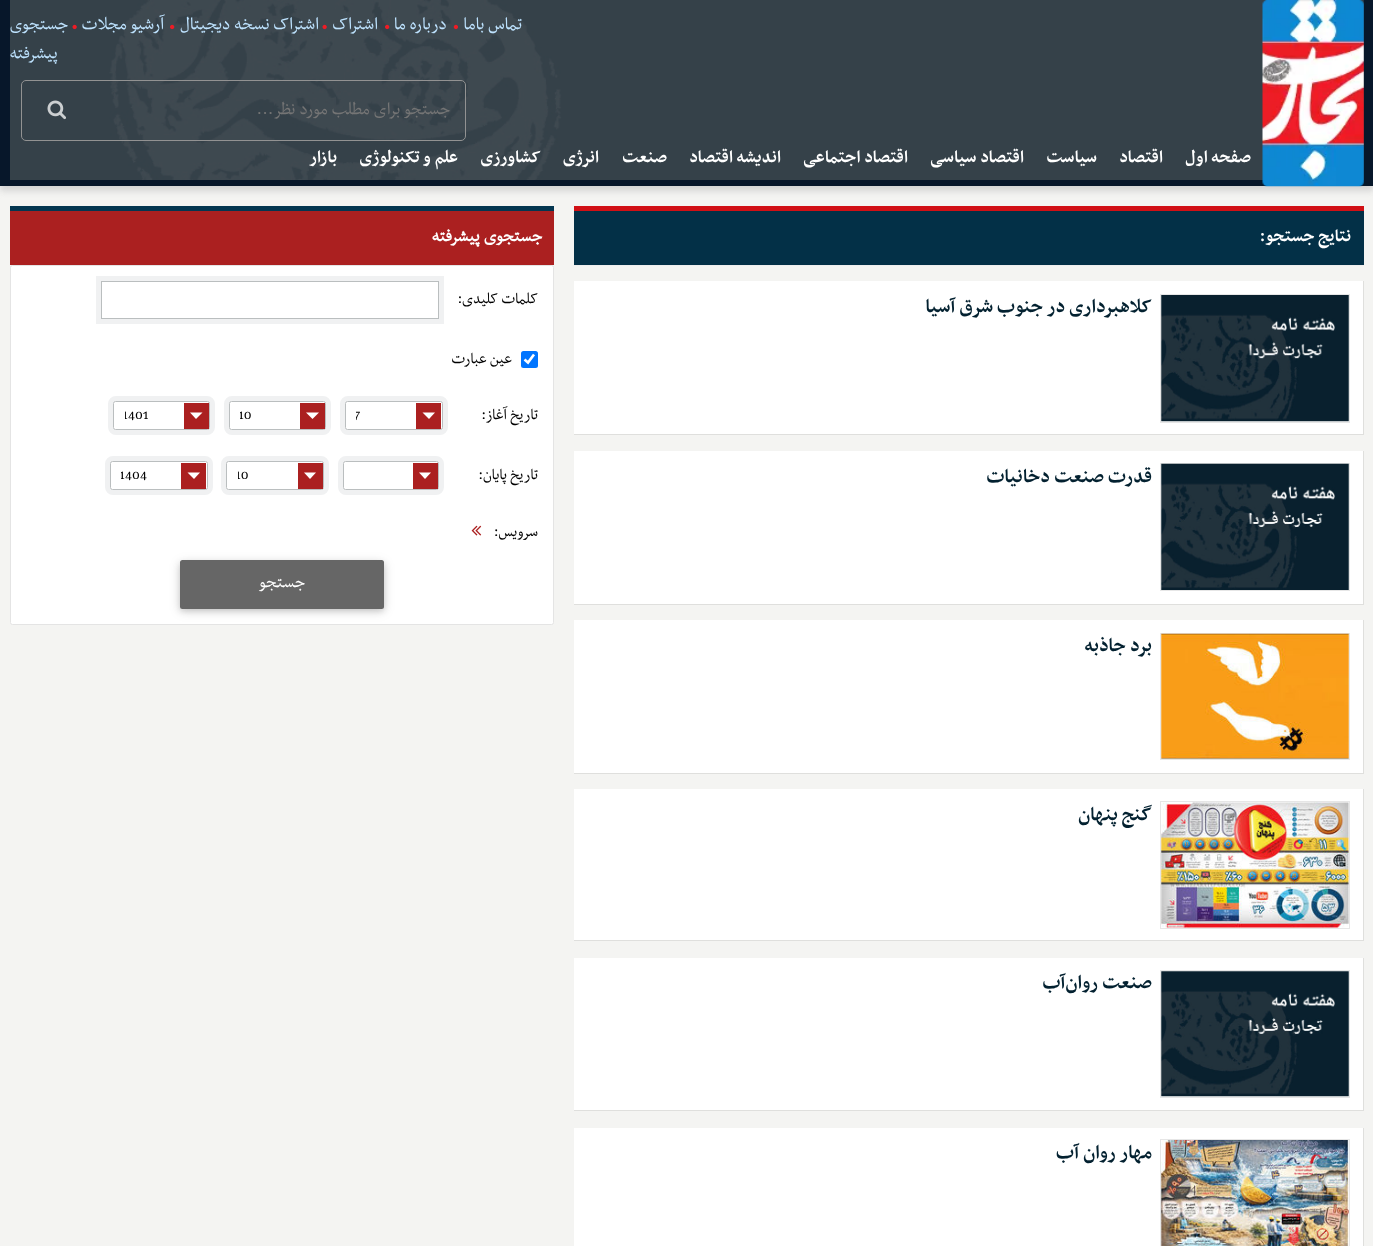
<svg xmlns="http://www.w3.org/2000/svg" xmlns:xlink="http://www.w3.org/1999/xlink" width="1373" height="1246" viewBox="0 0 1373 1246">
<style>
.cls-1{font:20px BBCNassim;direction:rtl;fill:#bee3ff}
.cls-2{font:20px BBCNassim;direction:rtl;fill:#757575}
.cls-3{font:bold 20px BBCNassim;direction:rtl;fill:#ffffff}
.cls-4{font:bold 22.25px BBCNassim;direction:rtl;fill:#032130}
.cls-5{font:bold 20px 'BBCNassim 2';direction:rtl;fill:#ffffff}
.cls-6{font:17.5px BBCNassim;direction:rtl;fill:#000000}
.cls-7{font:16px BBCNassim;fill:#000000}
.cls-8{font:20px BBCNassim;direction:rtl;fill:#ffffff}
</style>
<defs>
<clipPath id="clip1"><rect x="356" y="405" width="80" height="23"/></clipPath>
<clipPath id="clip2"><rect x="240" y="405" width="80" height="23"/></clipPath>
<clipPath id="clip3"><rect x="125" y="405" width="79" height="23"/></clipPath>
<clipPath id="clip4"><rect x="238" y="465" width="80" height="23"/></clipPath>
<clipPath id="clip5"><rect x="121" y="465" width="80" height="23"/></clipPath>
</defs>
<rect width="100%" height="100%" fill="#f4f4f2"/>
<rect fill="#d4d4d4" filter="blur(3px)" x="0" y="5" width="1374" height="186"/>
<rect fill="#07172a" x="0" y="0" width="1373" height="186"/>
<image xlink:href="image0.png" x="10" y="0" width="1354" height="180"/>
<image xlink:href="image1.png" x="1262" y="0" width="102" height="187"/>
<image xlink:href="image2.png" x="453" y="24" width="5" height="6"/>
<image xlink:href="image3.png" x="385" y="24" width="5" height="6"/>
<image xlink:href="image4.png" x="322" y="24" width="5" height="6"/>
<image xlink:href="image5.png" x="170" y="24" width="5" height="6"/>
<image xlink:href="image6.png" x="72" y="24" width="5" height="6"/>
<rect fill="none" stroke="#929292" x="21.5" y="80.5" width="444" height="60" rx="4.5"/>
<image xlink:href="image7.png" x="47" y="100" width="19" height="20"/>
<rect fill="#033047" x="574" y="211" width="790" height="54"/>
<rect fill="#d11015" x="574" y="206" width="790" height="5"/>
<rect fill="#eeeeee" x="574" y="265" width="790" height="1"/>
<rect fill="#ffffff" x="574" y="281" width="789" height="153"/>
<rect fill="#dfdfdd" x="1363" y="281" width="1" height="154"/>
<rect fill="#dfdfdd" x="574" y="434" width="790" height="1"/>
<rect fill="none" stroke="#e6e6e6" x="1160.5" y="294.5" width="189" height="128"/>
<image xlink:href="image8.png" x="1161" y="295" width="188" height="127"/>
<rect fill="#ffffff" x="574" y="451" width="789" height="153"/>
<rect fill="#dfdfdd" x="1363" y="451" width="1" height="154"/>
<rect fill="#dfdfdd" x="574" y="604" width="790" height="1"/>
<rect fill="none" stroke="#e6e6e6" x="1160.5" y="463.5" width="189" height="127"/>
<image xlink:href="image9.png" x="1161" y="463" width="188" height="127"/>
<rect fill="#ffffff" x="574" y="620" width="789" height="153"/>
<rect fill="#dfdfdd" x="1363" y="620" width="1" height="154"/>
<rect fill="#dfdfdd" x="574" y="773" width="790" height="1"/>
<rect fill="none" stroke="#e6e6e6" x="1160.5" y="633.5" width="189" height="126"/>
<image xlink:href="image10.png" x="1161" y="633" width="188" height="126"/>
<rect fill="#ffffff" x="574" y="789" width="789" height="151"/>
<rect fill="#dfdfdd" x="1363" y="789" width="1" height="152"/>
<rect fill="#dfdfdd" x="574" y="940" width="790" height="1"/>
<rect fill="none" stroke="#e6e6e6" x="1160.5" y="801.5" width="189" height="127"/>
<image xlink:href="image11.png" x="1161" y="802" width="188" height="126"/>
<rect fill="#ffffff" x="574" y="958" width="789" height="152"/>
<rect fill="#dfdfdd" x="1363" y="958" width="1" height="153"/>
<rect fill="#dfdfdd" x="574" y="1110" width="790" height="1"/>
<rect fill="none" stroke="#e6e6e6" x="1160.5" y="970.5" width="189" height="127"/>
<image xlink:href="image12.png" x="1161" y="971" width="188" height="126"/>
<rect fill="#ffffff" x="574" y="1128" width="789" height="118"/>
<rect fill="#dfdfdd" x="1363" y="1128" width="1" height="118"/>
<rect fill="none" stroke="#e6e6e6" x="1160.5" y="1139.5" width="189" height="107"/>
<image xlink:href="image13.png" x="1161" y="1140" width="188" height="106"/>
<rect fill="#ab2020" x="10" y="211" width="544" height="54"/>
<rect fill="#043650" x="10" y="206" width="544" height="5"/>
<rect fill="#ffffff" stroke="#e4e4e4" x="10.5" y="265.5" width="543" height="359" rx="2"/>
<rect fill="none" stroke="#f0f1f2" stroke-width="5" x="98.5" y="278.5" width="343" height="43"/>
<rect fill="none" stroke="#babebf" x="101.5" y="281.5" width="337" height="37"/>
<rect fill="#0075ff" x="521" y="351" width="17" height="17" rx="2.5"/>
<path fill="none" stroke="#ffffff" stroke-width="2.6" d="M524.5 359.5L528 362.5L534 354.5"/>
<rect fill="none" stroke="#f0f1f2" stroke-width="5" x="342.5" y="398.5" width="103" height="34" rx="5.5"/>
<rect fill="none" stroke="#babebf" x="345.5" y="401.5" width="97" height="28" rx="2"/>
<rect fill="#ab2020" x="416" y="403" width="25" height="26"/>
<path fill="#ffffff" d="M422.5 412.5H435L429 419Z"/>
<rect fill="none" stroke="#f0f1f2" stroke-width="5" x="226.5" y="398.5" width="102" height="34" rx="5.5"/>
<rect fill="none" stroke="#babebf" x="229.5" y="401.5" width="96" height="28" rx="2"/>
<rect fill="#ab2020" x="300" y="403" width="25" height="26"/>
<path fill="#ffffff" d="M306 412.5H319L312.5 419Z"/>
<rect fill="none" stroke="#f0f1f2" stroke-width="5" x="110.5" y="398.5" width="102" height="34" rx="5.5"/>
<rect fill="none" stroke="#babebf" x="113.5" y="401.5" width="96" height="28" rx="2"/>
<rect fill="#ab2020" x="184" y="403" width="25" height="26"/>
<path fill="#ffffff" d="M190 412.5H202.5L196 419Z"/>
<rect fill="none" stroke="#f0f1f2" stroke-width="5" x="340.5" y="458.5" width="101" height="34" rx="5.5"/>
<rect fill="none" stroke="#babebf" x="343.5" y="461.5" width="95" height="28" rx="2"/>
<rect fill="#ab2020" x="413" y="463" width="25" height="26"/>
<path fill="#ffffff" d="M419 472.5H431L425 479Z"/>
<rect fill="none" stroke="#f0f1f2" stroke-width="5" x="223.5" y="458.5" width="103" height="34" rx="5.5"/>
<rect fill="none" stroke="#babebf" x="226.5" y="461.5" width="97" height="28" rx="2"/>
<rect fill="#ab2020" x="298" y="463" width="25" height="26"/>
<path fill="#ffffff" d="M304 472.5H316L310 479Z"/>
<rect fill="none" stroke="#f0f1f2" stroke-width="5" x="107.5" y="458.5" width="103" height="34" rx="5.5"/>
<rect fill="none" stroke="#babebf" x="110.5" y="461.5" width="97" height="28" rx="2"/>
<rect fill="#ab2020" x="181" y="463" width="25" height="26"/>
<path fill="#ffffff" d="M187.5 472.5H200L194 479Z"/>
<image xlink:href="image14.png" x="471" y="525" width="11" height="11"/>
<rect fill="#000000" fill-opacity="0.12" filter="blur(6px)" x="180" y="563" width="204" height="48" rx="2.5"/>
<rect fill="#000000" fill-opacity="0.16" filter="blur(3px)" x="180" y="563" width="204" height="48" rx="2.5"/>
<rect fill="#666666" x="180" y="560" width="204" height="49" rx="2.5"/>
<text class="cls-1" x="522" y="29">تماس باما</text>
<text class="cls-1" x="447" y="29">درباره ما</text>
<text class="cls-1" x="378" y="29">اشتراک</text>
<text class="cls-1" x="319" y="29">اشتراک نسخه دیجیتال</text>
<text class="cls-1" x="164" y="29">آرشیو مجلات</text>
<text class="cls-1" x="68" y="29">جستجوی</text>
<text class="cls-1" x="58" y="58">پیشرفته</text>
<text class="cls-2" x="450" y="114">جستجو برای مطلب مورد نظر...</text>
<text class="cls-3" x="1251" y="162">صفحه اول</text>
<text class="cls-3" x="1163" y="162">اقتصاد</text>
<text class="cls-3" x="1097" y="162">سیاست</text>
<text class="cls-3" x="1024" y="162">اقتصاد سیاسی</text>
<text class="cls-3" x="908" y="162">اقتصاد اجتماعی</text>
<text class="cls-3" x="781" y="162">اندیشه اقتصاد</text>
<text class="cls-3" x="667" y="162">صنعت</text>
<text class="cls-3" x="599" y="162">انرژی</text>
<text class="cls-3" x="541" y="162">کشاورزی</text>
<text class="cls-3" x="458" y="162">علم و تکنولوژی</text>
<text class="cls-3" x="337" y="162">بازار</text>
<text class="cls-3" x="1351" y="241">نتایج جستجو:</text>
<text class="cls-4" x="1152" y="312">کلاهبرداری در جنوب شرق آسیا</text>
<text class="cls-4" x="1152" y="482">قدرت صنعت دخانیات</text>
<text class="cls-4" x="1152" y="651">برد جاذبه</text>
<text class="cls-4" x="1152" y="820">گنج پنهان</text>
<text class="cls-4" x="1152" y="988">صنعت روان‌آب</text>
<text class="cls-4" x="1152" y="1158">مهار روان آب</text>
<text class="cls-5" x="542" y="241">جستجوی پیشرفته</text>
<text class="cls-6" x="538" y="303">کلمات کلیدی:</text>
<text class="cls-6" x="512" y="363">عین عبارت</text>
<text class="cls-6" x="538" y="419">تاریخ آغاز:</text>
<g clip-path="url(#clip1)">
<text class="cls-7" x="354" y="419">7</text>
</g>
<g clip-path="url(#clip2)">
<text class="cls-7" x="238" y="419">10</text>
</g>
<g clip-path="url(#clip3)">
<text class="cls-7" x="122" y="419">1401</text>
</g>
<text class="cls-6" x="538" y="479">تاریخ پایان:</text>
<g clip-path="url(#clip4)">
<text class="cls-7" x="235" y="479">10</text>
</g>
<g clip-path="url(#clip5)">
<text class="cls-7" x="119" y="479">1404</text>
</g>
<text class="cls-6" x="538" y="536">سرویس:</text>
<text class="cls-8" x="305" y="587">جستجو</text>
</svg>
